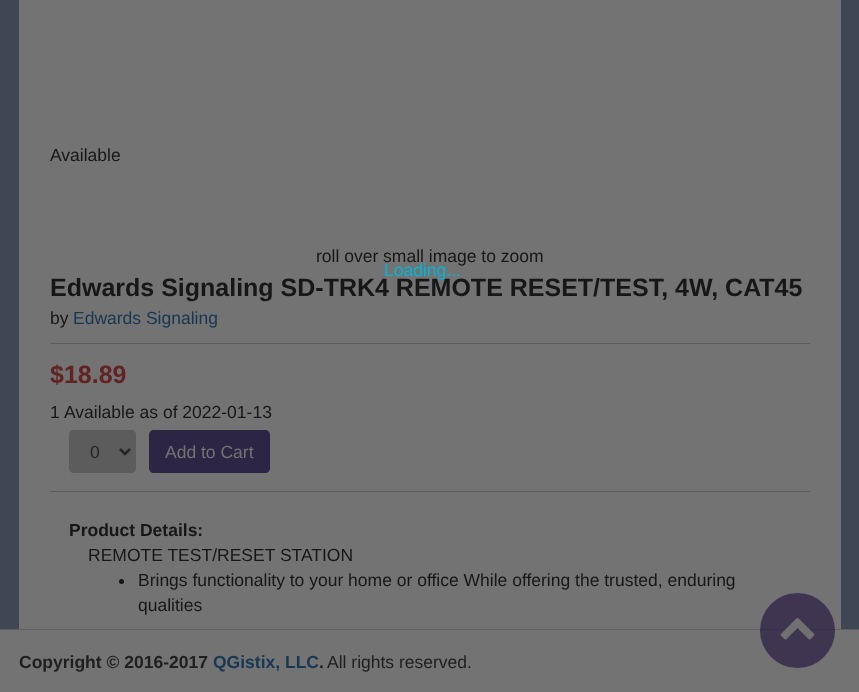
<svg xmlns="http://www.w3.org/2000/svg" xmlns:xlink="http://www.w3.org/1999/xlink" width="859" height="692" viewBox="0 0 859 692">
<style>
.cls-1{font:17.5px Liberation Sans;fill:#171717}
.cls-2{font:bold 25px Liberation Sans;fill:#171717}
.cls-3{font:17.5px Liberation Sans;fill:#173752}
.cls-4{font:bold 25px Liberation Sans;fill:#622323}
.cls-5{font:17.5px Liberation Sans;fill:#262626}
.cls-6{font:17.5px Liberation Sans;fill:#737373}
.cls-7{font:bold 17.5px Liberation Sans;fill:#171717}
.cls-8{font:bold 17.5px Liberation Sans;fill:#1f1f1f}
.cls-9{font:bold 17.5px Liberation Sans;fill:#173752}
.cls-10{font:17.5px Liberation Sans;fill:#1f1f1f}
.cls-11{font:17.5px Liberation Sans;fill:#00b6da}
</style>
<rect width="100%" height="100%" fill="#3f4754"/>
<rect fill="#737373" x="19" y="0" width="822" height="629"/>
<rect fill="#5c5c5c" x="50" y="343" width="760" height="1"/>
<rect fill="#5c5c5c" x="50" y="491" width="760" height="1"/>
<path fill="#5c5c5c" d="M74 430H131C134 430 136 432 136 435V468C136 471 134 473 131 473H74C71 473 69 471 69 468V435C69 432 71 430 74 430Z"/>
<path fill="none" stroke="#262626" stroke-width="2.5" d="M120 449L125 454L130 449"/>
<path fill="#2d2544" d="M154 430H265C268 430 270 432 270 435V468C270 471 268 473 265 473H154C151 473 149 471 149 468V435C149 432 151 430 154 430Z"/>
<circle fill="#171717" cx="121.5" cy="581.5" r="2.5"/>
<rect fill="#737373" x="0" y="630" width="859" height="62"/>
<rect fill="#5e6064" x="0" y="629" width="859" height="1"/>
<circle fill="#261640" fill-opacity="0.66" cx="797.5" cy="630.5" r="37.5"/>
<image xlink:href="image0.png" x="780" y="617" width="35" height="23"/>
<text class="cls-1" x="50" y="161">Available</text>
<text class="cls-1" x="316" y="262">roll over small image to zoom</text>
<text class="cls-2" x="50" y="296">Edwards Signaling SD-TRK4 REMOTE RESET/TEST, 4W, CAT45</text>
<text class="cls-1" x="50" y="324">by</text>
<text class="cls-3" x="73" y="324">Edwards Signaling</text>
<text class="cls-4" x="50" y="383">$18.89</text>
<text class="cls-1" x="50" y="418">1</text>
<text class="cls-1" x="64" y="418">Available as of 2022-01-13</text>
<text class="cls-5" x="90" y="458">0</text>
<text class="cls-6" x="165" y="458">Add to Cart</text>
<text class="cls-7" x="69" y="536">Product Details:</text>
<text class="cls-1" x="88" y="561">REMOTE TEST/RESET STATION</text>
<text class="cls-1"><tspan x="138" y="586">Brings functionality to your home or office While offering the trusted, enduring</tspan><tspan x="138" y="611">qualities</tspan></text>
<text class="cls-8" x="19" y="668">Copyright © 2016-2017</text>
<text class="cls-9" x="213" y="668">QGistix, LLC</text>
<text class="cls-8" x="319" y="668">.</text>
<text class="cls-10" x="327" y="668">All rights reserved.</text>
<text class="cls-11" x="384" y="276">Loading...</text>
</svg>
